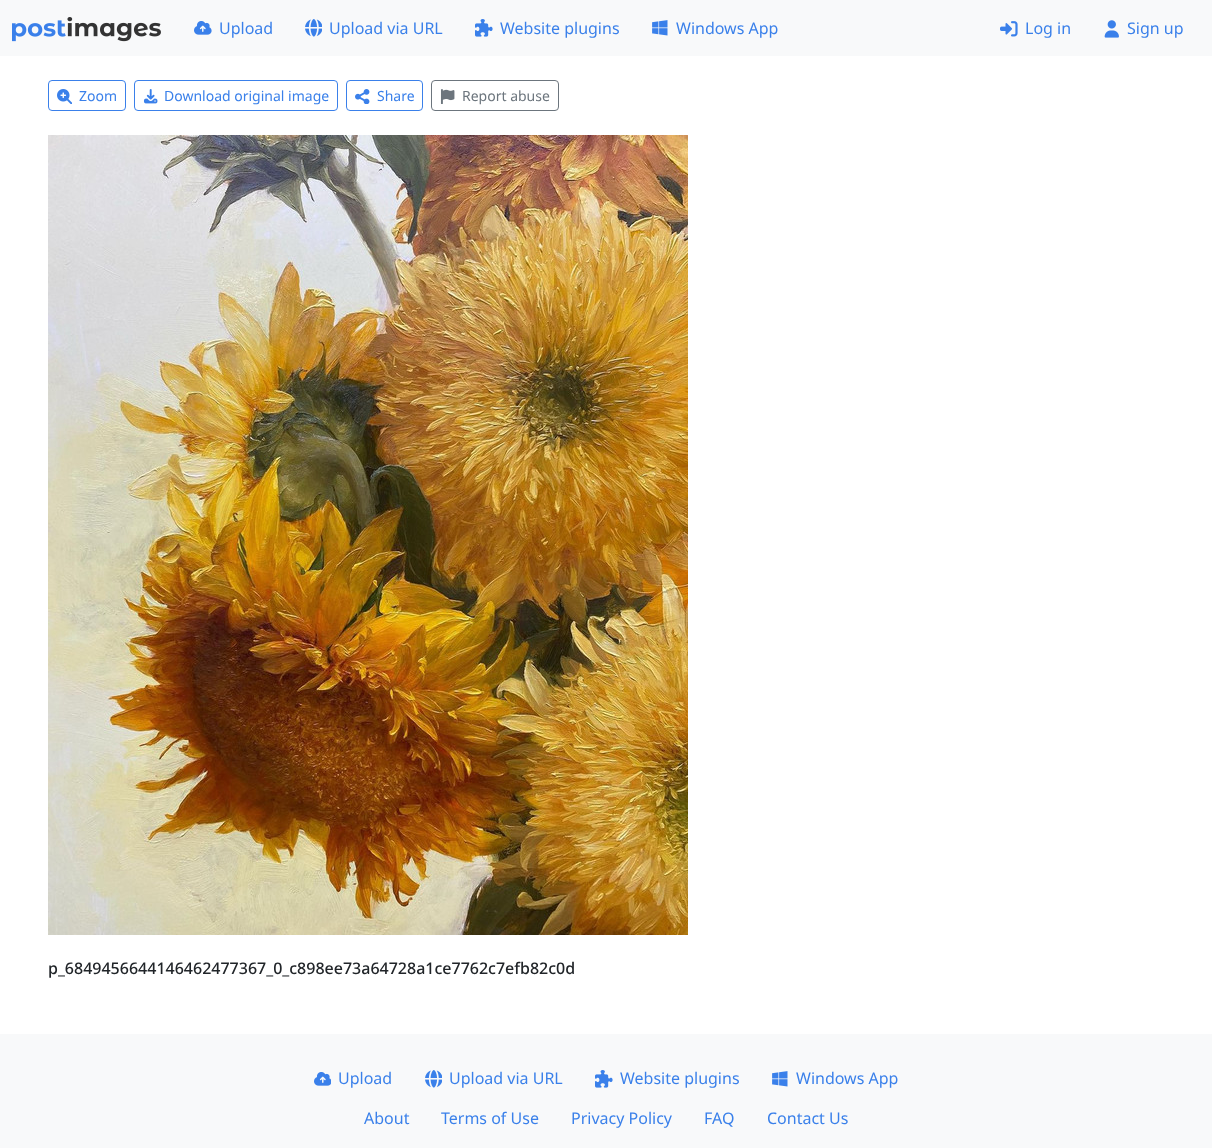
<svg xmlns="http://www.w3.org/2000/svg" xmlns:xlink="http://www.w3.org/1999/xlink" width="1212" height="1148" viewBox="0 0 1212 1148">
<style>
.cls-1{font:16px Noto Sans;fill:#3a80ea}
.cls-2{font:14px Noto Sans;fill:#3a80ea}
.cls-3{font:14px Noto Sans;fill:#6c757d}
.cls-4{font:500 16px Noto Sans;fill:#212529}
</style>
<rect width="100%" height="100%" fill="#ffffff"/>
<rect fill="#f8f9fa" x="0" y="0" width="1212" height="56"/>
<image xlink:href="image0.png" x="12" y="17" width="149" height="25"/>
<image xlink:href="image1.png" x="194" y="21" width="18" height="14"/>
<image xlink:href="image2.png" x="305" y="19" width="17" height="18"/>
<image xlink:href="image3.png" x="475" y="19" width="18" height="18"/>
<image xlink:href="image4.png" x="652" y="20" width="16" height="16"/>
<image xlink:href="image5.png" x="1000" y="21" width="18" height="16"/>
<image xlink:href="image6.png" x="1104" y="20" width="15" height="18"/>
<rect fill="none" stroke="#3a80ea" x="48.5" y="80.5" width="77" height="30" rx="3.5"/>
<image xlink:href="image7.png" x="57" y="89" width="15" height="15"/>
<rect fill="none" stroke="#3a80ea" x="134.5" y="80.5" width="203" height="30" rx="3.5"/>
<image xlink:href="image8.png" x="143" y="89" width="15" height="15"/>
<rect fill="none" stroke="#3a80ea" x="346.5" y="80.5" width="76" height="30" rx="3.5"/>
<image xlink:href="image9.png" x="355" y="89" width="15" height="15"/>
<rect fill="none" stroke="#6c757d" x="431.5" y="80.5" width="127" height="30" rx="3.5"/>
<image xlink:href="image10.png" x="440" y="89" width="15" height="15"/>
<image xlink:href="image11.png" x="48" y="135" width="640" height="800"/>
<rect fill="#f8f9fa" x="0" y="1034" width="1212" height="114"/>
<image xlink:href="image12.png" x="314" y="1072" width="17" height="14"/>
<image xlink:href="image2.png" x="425" y="1070" width="17" height="18"/>
<image xlink:href="image3.png" x="595" y="1070" width="18" height="18"/>
<image xlink:href="image4.png" x="772" y="1071" width="16" height="16"/>
<text class="cls-1" x="219" y="34">Upload</text>
<text class="cls-1" x="329" y="34">Upload via URL</text>
<text class="cls-1" x="500" y="34">Website plugins</text>
<text class="cls-1" x="676" y="34">Windows App</text>
<text class="cls-1" x="1025" y="34">Log in</text>
<text class="cls-1" x="1127" y="34">Sign up</text>
<text class="cls-2" x="79" y="101">Zoom</text>
<text class="cls-2" x="164" y="101">Download original image</text>
<text class="cls-2" x="377" y="101">Share</text>
<text class="cls-3" x="462" y="101">Report abuse</text>
<text class="cls-4" x="48" y="974">p_6849456644146462477367_0_c898ee73a64728a1ce7762c7efb82c0d</text>
<text class="cls-1" x="338" y="1084">Upload</text>
<text class="cls-1" x="449" y="1084">Upload via URL</text>
<text class="cls-1" x="620" y="1084">Website plugins</text>
<text class="cls-1" x="796" y="1084">Windows App</text>
<text class="cls-1" x="364" y="1124">About</text>
<text class="cls-1" x="441" y="1124">Terms of Use</text>
<text class="cls-1" x="571" y="1124">Privacy Policy</text>
<text class="cls-1" x="704" y="1124">FAQ</text>
<text class="cls-1" x="767" y="1124">Contact Us</text>
</svg>
